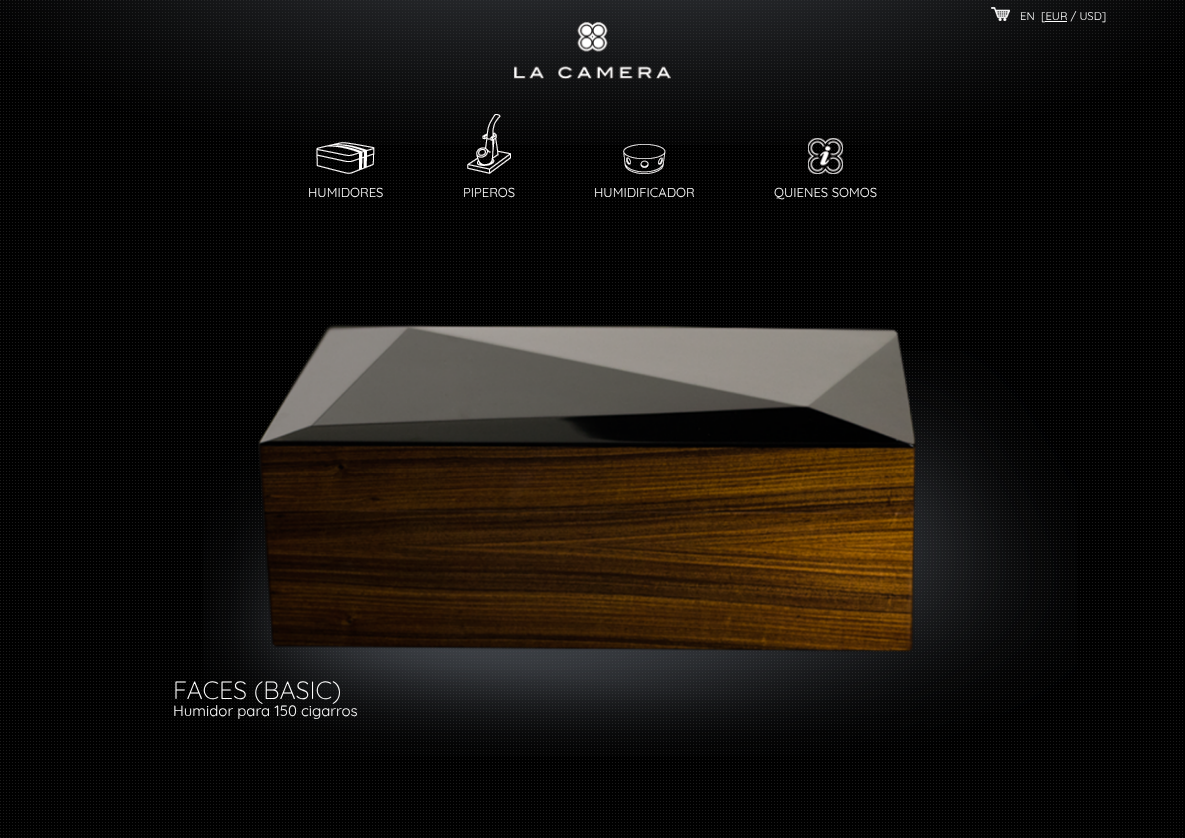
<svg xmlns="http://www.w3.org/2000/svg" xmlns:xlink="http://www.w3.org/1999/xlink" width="1185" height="838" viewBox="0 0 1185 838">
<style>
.cls-1{font:11.25px Quicksand;fill:#ffffff}
.cls-2{font:13px Quicksand;fill:#ffffff}
.cls-3{font:300 25px Quicksand;fill:#ffffff}
.cls-4{font:15px Quicksand;fill:#ffffff}
</style>
<rect width="100%" height="100%" fill="#000000"/>
<image xlink:href="image0.png" x="0" y="0" width="1183" height="838"/>
<image xlink:href="image1.png" x="0" y="0" width="593" height="145"/>
<image xlink:href="image2.png" x="593" y="0" width="592" height="145"/>
<image xlink:href="image3.png" x="991" y="7" width="19" height="14"/>
<rect fill="#ffffff" x="1045" y="21" width="22" height="1"/>
<image xlink:href="image4.png" x="514" y="22" width="157" height="57"/>
<image xlink:href="image5.png" x="316" y="142" width="59" height="32"/>
<image xlink:href="image6.png" x="467" y="114" width="44" height="60"/>
<image xlink:href="image7.png" x="623" y="144" width="43" height="30"/>
<image xlink:href="image8.png" x="808" y="138" width="35" height="36"/>
<image xlink:href="image10.png" x="203" y="351" width="874" height="405"/>
<image xlink:href="image9.png" x="258" y="324" width="658" height="328"/>
<text class="cls-1" x="1020" y="20">EN</text>
<text class="cls-1" x="1041" y="20">[EUR / USD]</text>
<text class="cls-2" x="308" y="197">HUMIDORES</text>
<text class="cls-2" x="463" y="197">PIPEROS</text>
<text class="cls-2" x="594" y="197">HUMIDIFICADOR</text>
<text class="cls-2" x="774" y="197">QUIENES SOMOS</text>
<text class="cls-3" x="173" y="699">FACES (BASIC)</text>
<text class="cls-4" x="173" y="716">Humidor para 150 cigarros</text>
</svg>
